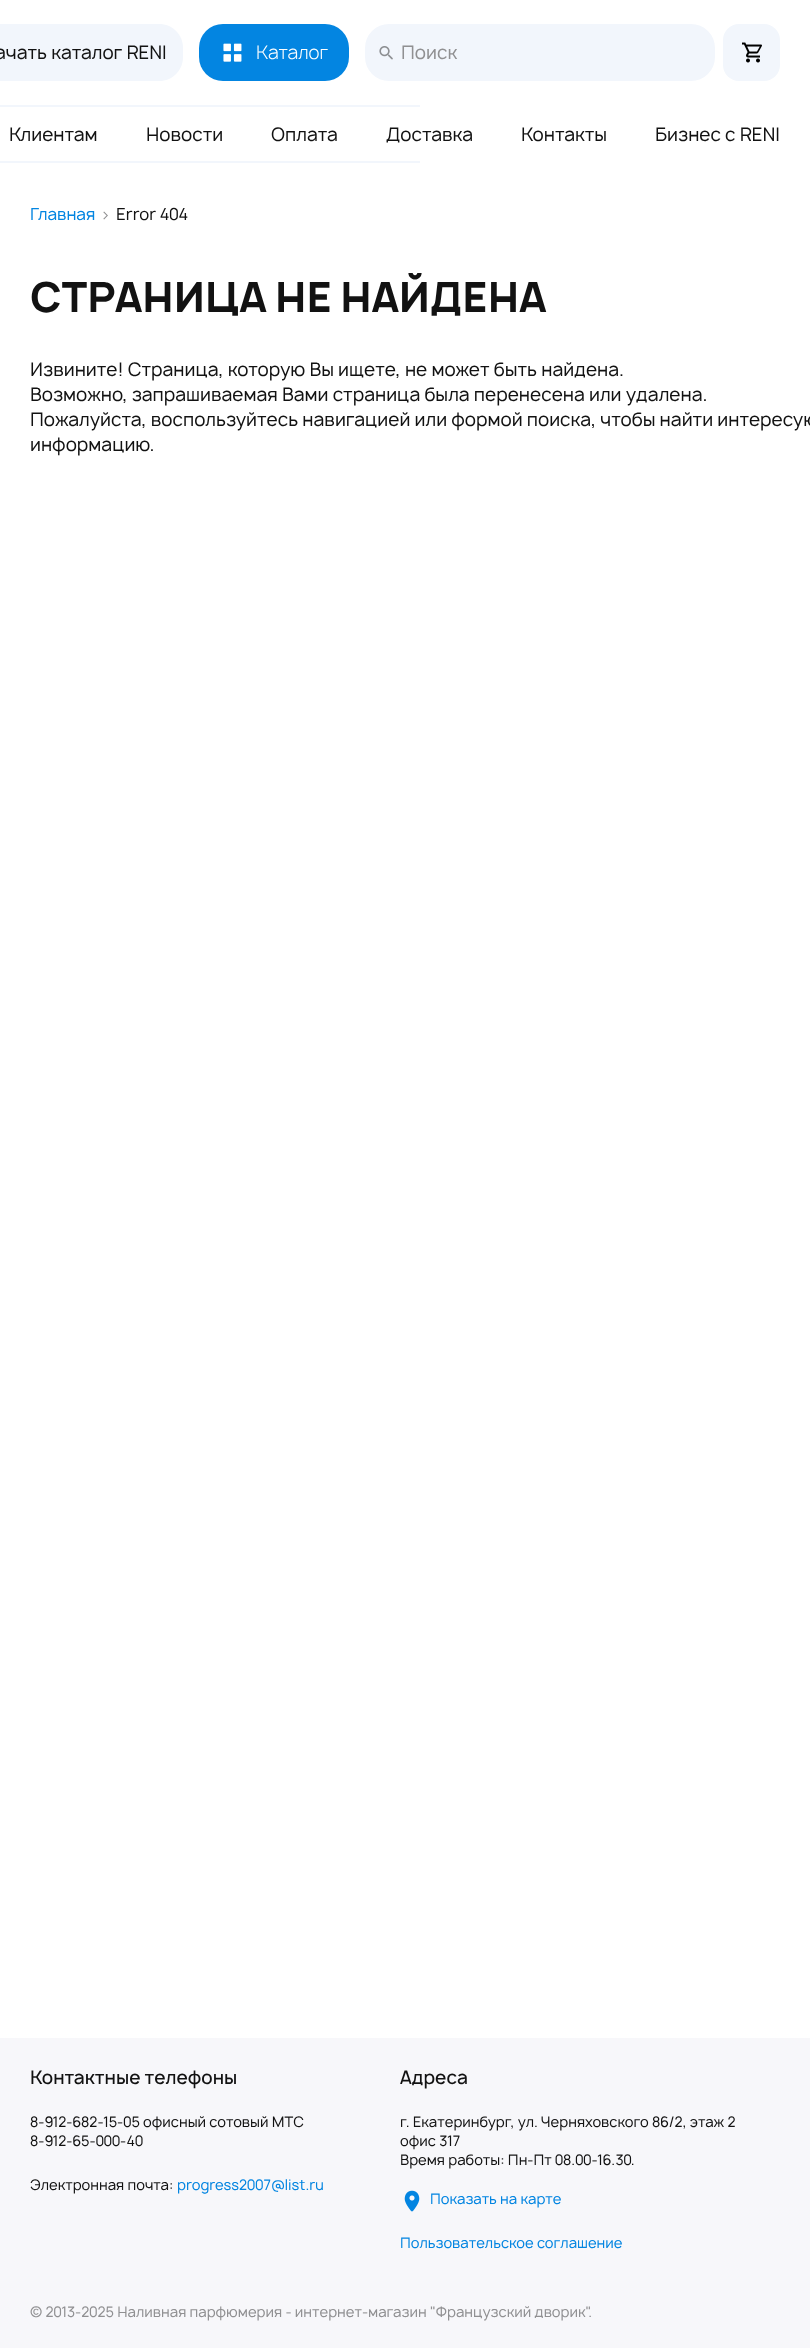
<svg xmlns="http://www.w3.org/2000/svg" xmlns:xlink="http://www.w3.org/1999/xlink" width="810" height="2348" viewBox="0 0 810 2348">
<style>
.cls-1{font:18px Manrope;fill:#121212}
.cls-2{font:300 18px Manrope;fill:#ffffff}
.cls-3{font:18px Manrope;fill:#909092}
.cls-4{font:16px Manrope;fill:#0385e1}
.cls-5{font:16px Manrope;fill:#909092}
.cls-6{font:16px Manrope;fill:#121212}
.cls-7{font:bold 40px Manrope;fill:#121212}
.cls-8{font:500 18px Manrope;fill:#121212}
.cls-9{font:14px Manrope;fill:#121212}
.cls-10{font:14px Manrope;fill:#0385e1}
.cls-11{font:14px Manrope;fill:#909092}
</style>
<rect width="100%" height="100%" fill="#ffffff"/>
<path fill="#f2f6fc" d="M0 24H159C172.5 24 183 34.5 183 48V57C183 70.5 172.5 81 159 81H0Z"/>
<rect fill="#0385e1" x="199" y="24" width="150" height="57" rx="24"/>
<image xlink:href="image0.png" x="223" y="43" width="19" height="19"/>
<rect fill="#f2f6fc" x="365" y="24" width="350" height="57" rx="24"/>
<image xlink:href="image1.png" x="379" y="46" width="14" height="14"/>
<rect fill="#f2f6fc" x="723" y="24" width="57" height="57" rx="16"/>
<image xlink:href="image2.png" x="742" y="42" width="20" height="21"/>
<rect fill="#f2f6fc" x="0" y="105" width="420" height="2"/>
<rect fill="#f2f6fc" x="0" y="161" width="420" height="2"/>
<rect fill="#f7f7fa" x="0" y="2038" width="810" height="310"/>
<image xlink:href="image3.png" x="404" y="2190" width="16" height="22"/>
<text class="cls-1" x="-5" y="59">ачать каталог RENI</text>
<text class="cls-2" x="256" y="59">Каталог</text>
<text class="cls-3" x="401" y="59">Поиск</text>
<text class="cls-1" x="9" y="141">Клиентам</text>
<text class="cls-1" x="146" y="141">Новости</text>
<text class="cls-1" x="271" y="141">Оплата</text>
<text class="cls-1" x="386" y="141">Доставка</text>
<text class="cls-1" x="521" y="141">Контакты</text>
<text class="cls-1" x="655" y="141">Бизнес с RENI</text>
<text class="cls-4" x="30" y="220">Главная</text>
<text class="cls-5" x="100" y="220">&gt;</text>
<text class="cls-6" x="116" y="220">Error 404</text>
<text class="cls-7" x="30" y="312">СТРАНИЦА НЕ НАЙДЕНА</text>
<text class="cls-1"><tspan x="30" y="376">Извините! Страница, которую Вы ищете, не может быть найдена.</tspan><tspan x="30" y="401">Возможно, запрашиваемая Вами страница была перенесена или удалена.</tspan><tspan x="30" y="426">Пожалуйста, воспользуйтесь навигацией или формой поиска, чтобы найти интересую</tspan><tspan x="30" y="451">информацию.</tspan></text>
<text class="cls-8" x="30" y="2084">Контактные телефоны</text>
<text class="cls-9"><tspan x="30" y="2127">8-912-682-15-05 офисный сотовый МТС</tspan><tspan x="30" y="2146">8-912-65-000-40</tspan></text>
<text class="cls-9" x="30" y="2190">Электронная почта:</text>
<text class="cls-10" x="177" y="2190">progress2007@list.ru</text>
<text class="cls-8" x="400" y="2084">Адреса</text>
<text class="cls-9"><tspan x="400" y="2127">г. Екатеринбург, ул. Черняховского 86/2, этаж 2</tspan><tspan x="400" y="2146">офис 317</tspan><tspan x="400" y="2165">Время работы: Пн-Пт 08.00-16.30.</tspan></text>
<text class="cls-10" x="430" y="2204">Показать на карте</text>
<text class="cls-10" x="400" y="2248">Пользовательское соглашение</text>
<text class="cls-11" x="30" y="2317">© 2013-2025 Наливная парфюмерия - интернет-магазин "Французский дворик".</text>
</svg>
